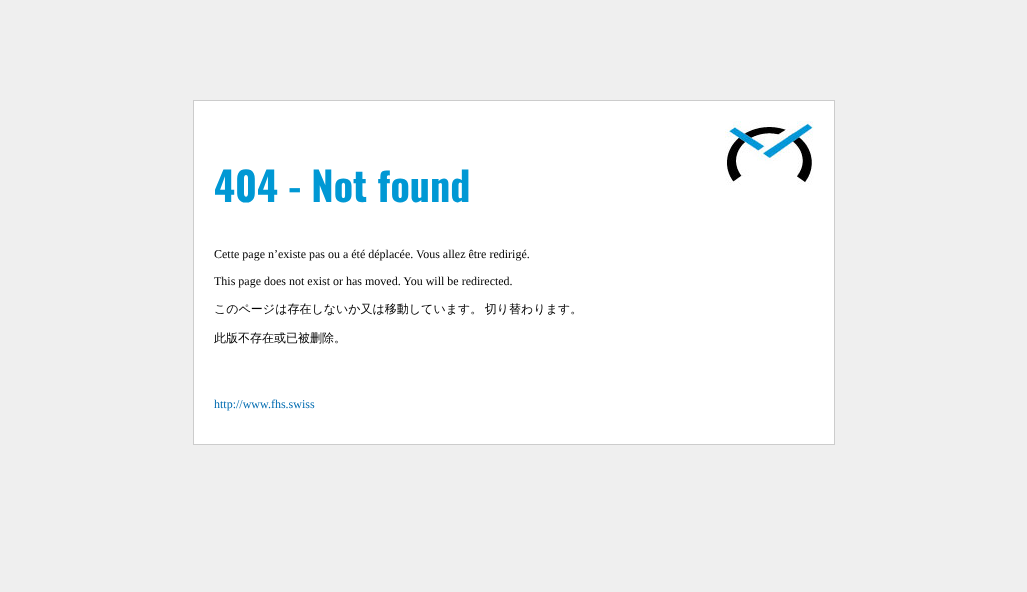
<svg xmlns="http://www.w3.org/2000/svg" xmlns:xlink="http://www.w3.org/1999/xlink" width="1027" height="592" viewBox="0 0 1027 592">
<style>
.cls-1{font:bold 40px Oswald;fill:#0098d4}
.cls-2{font:12px Liberation Serif;fill:#000000}
.cls-3{font:500 12px WenQuanYi Zen Hei;fill:#000000}
.cls-4{font:12px Liberation Serif;fill:#026cb1}
</style>
<rect width="100%" height="100%" fill="#efefef"/>
<rect fill="#ffffff" stroke="#cccccc" x="193.5" y="100.5" width="641" height="344"/>
<image xlink:href="image0.png" x="725" y="121" width="89" height="64"/>
<text class="cls-1" x="214" y="202">404 - Not found</text>
<text class="cls-2" x="214" y="258">Cette page n’existe pas ou a été déplacée. Vous allez être redirigé.</text>
<text class="cls-2" x="214" y="285">This page does not exist or has moved. You will be redirected.</text>
<text class="cls-3" x="214" y="313" word-spacing="-1">このページは存在しないか又は移動しています。 切り替わります。</text>
<text class="cls-3" x="214" y="342">此版不存在或已被删除。</text>
<text class="cls-4" x="214" y="408">http://www.fhs.swiss</text>
</svg>
